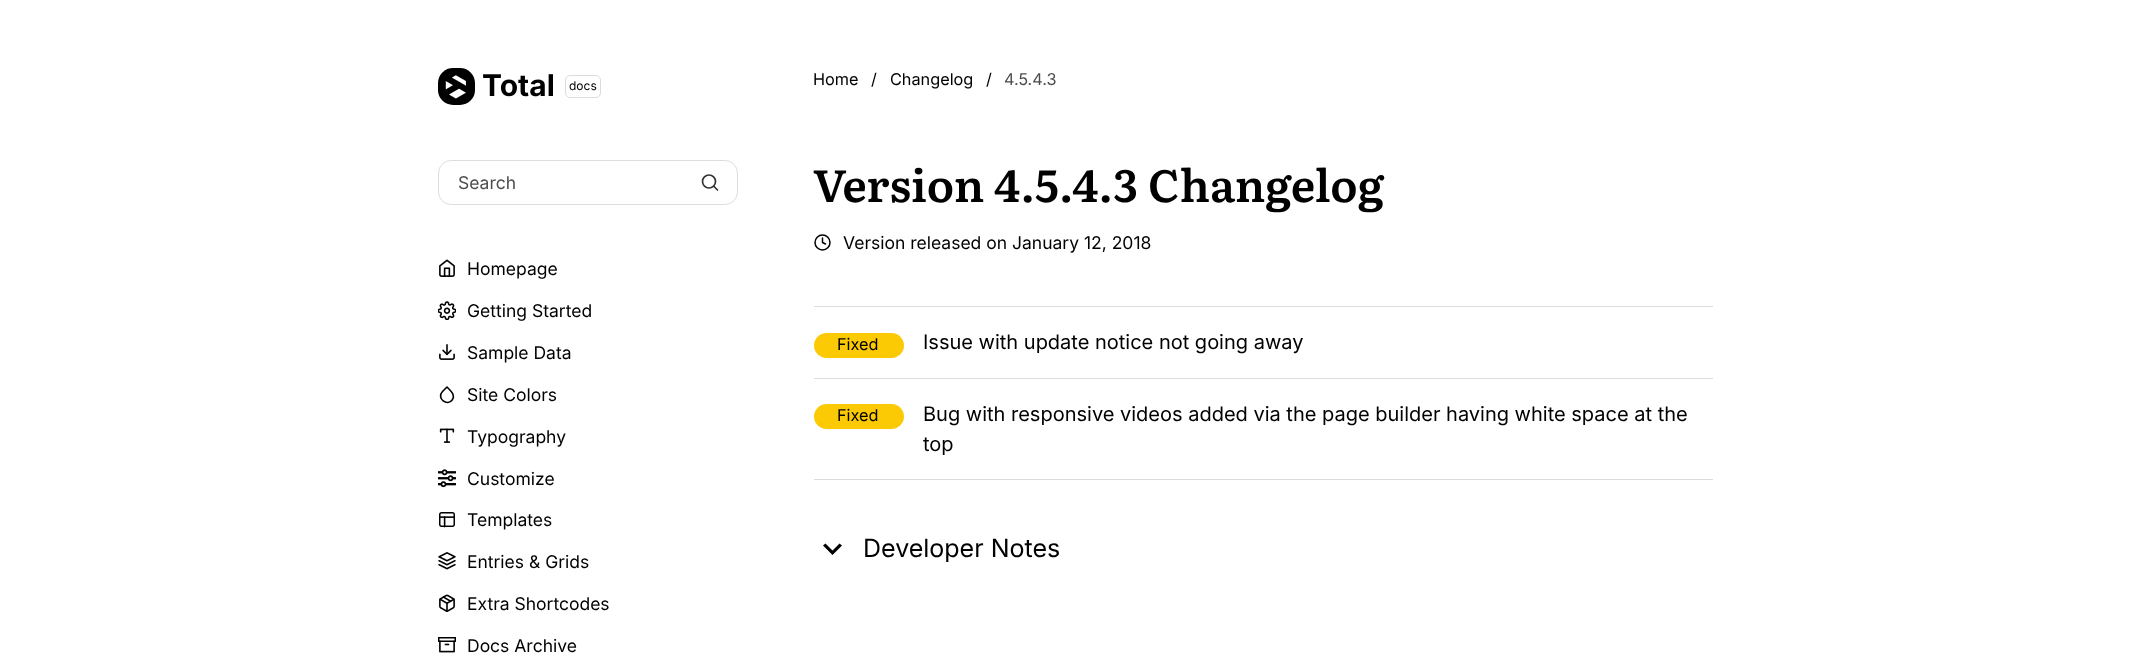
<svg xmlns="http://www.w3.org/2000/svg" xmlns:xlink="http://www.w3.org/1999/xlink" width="2148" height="668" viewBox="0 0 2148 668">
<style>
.cls-1{font:bold 30px Inter;fill:#000000}
.cls-2{font:12px Inter;fill:#000000}
.cls-3{font:17.5px Inter;fill:#4d4d4d}
.cls-4{font:17.5px Inter;fill:#000000}
.cls-5{font:16.25px Inter;fill:#000000}
.cls-6{font:16.25px Inter;fill:#4d4d4d}
.cls-7{font:600 45px Literata;fill:#000000}
.cls-8{font:20px Inter;fill:#000000}
.cls-9{font:25px Inter;fill:#000000}
</style>
<rect width="100%" height="100%" fill="#ffffff"/>
<rect fill="#000000" x="438" y="68" width="37" height="37" rx="15"/>
<image xlink:href="image0.png" x="445" y="75" width="21" height="24"/>
<rect fill="none" stroke="#dcdcde" x="565.5" y="75.5" width="35" height="22" rx="4.5"/>
<rect fill="none" stroke="#dddddd" x="438.5" y="160.5" width="299" height="44" rx="12.5"/>
<circle fill="none" stroke="#333333" stroke-width="1.7" cx="709" cy="181.5" r="6.5"/>
<path fill="none" stroke="#333333" stroke-width="1.7" stroke-linecap="round" stroke-linejoin="round" d="M717.5 190L714 186.5"/>
<image xlink:href="image1.png" x="439" y="259" width="16" height="18"/>
<image xlink:href="image2.png" x="438" y="301" width="18" height="19"/>
<image xlink:href="image3.png" x="439" y="344" width="16" height="16"/>
<path fill="none" stroke="#000000" stroke-width="1.6" stroke-linecap="round" stroke-linejoin="round" d="M447 387C450 390.5 455.5 394 452.5 399.5C447.5 407.5 436 398 442.5 391.5Z"/>
<image xlink:href="image4.png" x="439" y="428" width="16" height="15"/>
<image xlink:href="image5.png" x="438" y="469" width="18" height="19"/>
<image xlink:href="image6.png" x="439" y="512" width="16" height="16"/>
<image xlink:href="image7.png" x="438" y="552" width="18" height="18"/>
<image xlink:href="image8.png" x="439" y="594" width="16" height="18"/>
<image xlink:href="image9.png" x="438" y="637" width="18" height="16"/>
<circle fill="none" stroke="#000000" stroke-width="1.5" cx="822.5" cy="242.5" r="7.5"/>
<path fill="none" stroke="#000000" stroke-width="1.5" stroke-linecap="round" stroke-linejoin="round" d="M822.5 238V242.5L825.5 244"/>
<rect fill="#dcdcde" x="814" y="306" width="899" height="1"/>
<rect fill="#dcdcde" x="814" y="378" width="899" height="1"/>
<rect fill="#fbca04" x="814" y="333" width="90" height="25" rx="12.5"/>
<rect fill="#dcdcde" x="814" y="479" width="899" height="1"/>
<rect fill="#fbca04" x="814" y="404" width="90" height="25" rx="12.5"/>
<path fill="#000000" d="M839.5 543.5L832.5 550.5L825.5 543.5L823 545.5L832.5 555L842 545.5Z"/>
<text class="cls-1" x="482" y="96">Total</text>
<text class="cls-2" x="569" y="90">docs</text>
<text class="cls-3" x="458" y="189">Search</text>
<text class="cls-4" x="467" y="275">Homepage</text>
<text class="cls-4" x="467" y="317">Getting Started</text>
<text class="cls-4" x="467" y="359">Sample Data</text>
<text class="cls-4" x="467" y="401">Site Colors</text>
<text class="cls-4" x="467" y="443">Typography</text>
<text class="cls-4" x="467" y="485">Customize</text>
<text class="cls-4" x="467" y="526">Templates</text>
<text class="cls-4" x="467" y="568">Entries &amp; Grids</text>
<text class="cls-4" x="467" y="610">Extra Shortcodes</text>
<text class="cls-4" x="467" y="652">Docs Archive</text>
<text class="cls-5" x="813" y="85">Home</text>
<text class="cls-5" x="871" y="85">/</text>
<text class="cls-5" x="890" y="85">Changelog</text>
<text class="cls-5" x="986" y="85">/</text>
<text class="cls-6" x="1004" y="85">4.5.4.3</text>
<text class="cls-7" x="813" y="202">Version</text>
<text class="cls-7" x="994" y="202">4.5.4.3</text>
<text class="cls-7" x="1148" y="202">Changelog</text>
<text class="cls-4" x="843" y="249">Version released on January 12, 2018</text>
<text class="cls-5" x="837" y="350">Fixed</text>
<text class="cls-8" x="923" y="349">Issue with update notice not going away</text>
<text class="cls-5" x="837" y="421">Fixed</text>
<text class="cls-8"><tspan x="923" y="421">Bug with responsive videos added via the page builder having white space at the</tspan><tspan x="923" y="451">top</tspan></text>
<text class="cls-9" x="863" y="557">Developer Notes</text>
</svg>
